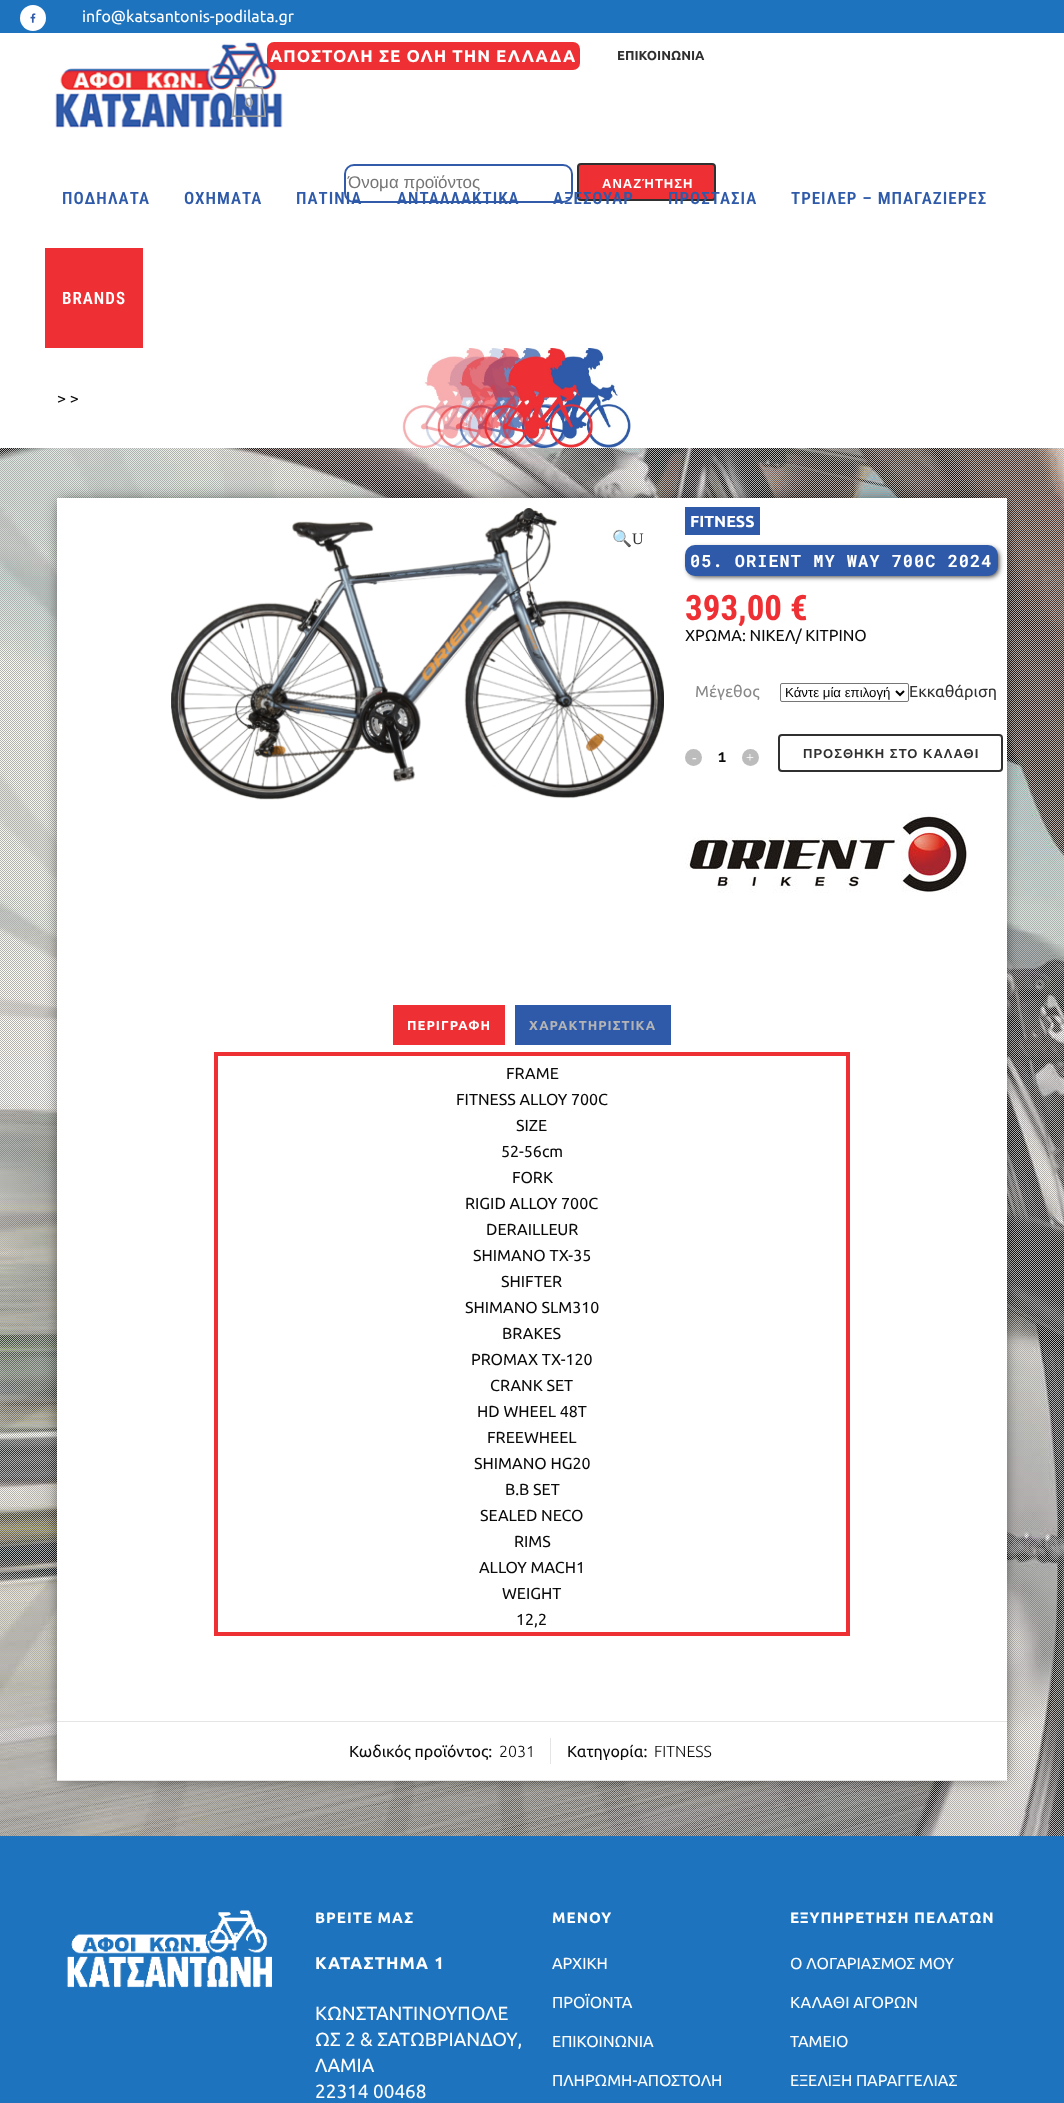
<svg xmlns="http://www.w3.org/2000/svg" xmlns:xlink="http://www.w3.org/1999/xlink" width="1064" height="2103" viewBox="0 0 1064 2103">
<style>
.cls-1{font:16px Ubuntu;fill:#ffffff}
.cls-2{font:bold 17px Ubuntu;letter-spacing:1px;fill:#ffffff}
.cls-3{font:bold 13px Ubuntu;fill:#303030}
.cls-4{font:600 16px Raleway;fill:#9d9d9d}
.cls-5{font:17px Liberation Sans;fill:#757575}
.cls-6{font:bold 13px Liberation Sans;letter-spacing:1px;fill:#ffffff}
.cls-7{font:600 17px Roboto Condensed;letter-spacing:1px;fill:#2e5aa9}
.cls-8{font:600 17px Roboto Condensed;letter-spacing:1px;fill:#ffffff}
.cls-9{font:16px Ubuntu;fill:#0a0a0a}
.cls-10{font:16px Noto Color Emoji;fill:#303030}
.cls-11{font:16px Liberation Serif;fill:#303030}
.cls-12{font:bold 16px Ubuntu;fill:#ffffff}
.cls-13{font:bold 17px Roboto Mono;letter-spacing:1px;fill:#ffffff}
.cls-14{font:bold 35px Roboto Condensed;fill:#ee2f33}
.cls-15{font:16px Ubuntu;fill:#888888}
.cls-16{font:13.25px Liberation Sans;fill:#000000}
.cls-17{font:16px Ubuntu;fill:#303030}
.cls-18{font:14px Liberation Serif;fill:#ffffff}
.cls-19{font:600 17px Raleway;fill:#0a0a0a}
.cls-20{font:bold 13px Liberation Sans;letter-spacing:1px;fill:#303030}
.cls-21{font:bold 13px Ubuntu;letter-spacing:1px;fill:#ffffff}
.cls-22{font:bold 13px Ubuntu;letter-spacing:1px;fill:#b4b4b4}
.cls-23{font:300 16px Ubuntu;fill:#0a0a0a}
.cls-24{font:bold 15px Ubuntu;letter-spacing:1px;fill:#ffffff}
.cls-25{font:19px Ubuntu;fill:#ffffff}
</style>
<rect width="100%" height="100%" fill="#ffffff"/>
<rect fill="#1e73be" x="0" y="0" width="1064" height="33"/>
<circle fill="#ffffff" cx="33" cy="18" r="13"/>
<image xlink:href="image0.png" x="30" y="13" width="6" height="10"/>
<image xlink:href="image1.png" x="55" y="42" width="228" height="86"/>
<rect fill="#ee2f33" x="267" y="42" width="313" height="28" rx="7"/>
<image xlink:href="image2.png" x="232" y="79" width="34" height="38"/>
<rect fill="none" stroke="#325baa" stroke-width="2" x="345" y="165" width="227" height="37" rx="9"/>
<rect fill="#ee2f33" stroke="#303030" stroke-width="2" x="578" y="164" width="137" height="36" rx="3"/>
<rect fill="#ee2f33" x="45" y="248" width="98" height="100"/>
<image xlink:href="image3.png" x="402" y="348" width="229" height="100"/>
<image xlink:href="image4.png" x="0" y="448" width="1064" height="1388"/>
<image xlink:href="image5.png" x="0" y="448" width="1064" height="1388"/>
<rect fill="#000000" fill-opacity="0.75" filter="blur(7.5px)" x="61" y="502" width="942" height="1275"/>
<rect fill="#ffffff" x="57" y="498" width="950" height="1282"/>
<image xlink:href="image6.png" x="171" y="508" width="493" height="292"/>
<rect fill="#2e5aa9" x="685" y="507" width="75" height="28"/>
<rect fill="#000000" fill-opacity="0.75" filter="blur(2.5px)" x="688" y="548" width="311" height="29" rx="9"/>
<rect fill="#2e5aa9" x="685" y="545" width="313" height="31" rx="10"/>
<rect fill="none" stroke="#767676" x="780.5" y="683.5" width="128" height="18" rx="1.5"/>
<path fill="none" stroke="#000000" stroke-width="2" d="M896 691L900 695L904 691"/>
<circle fill="#bcbcbc" cx="693.5" cy="757.5" r="8.5"/>
<circle fill="#bcbcbc" cx="750.5" cy="757.5" r="8.5"/>
<rect fill="none" stroke="#303030" stroke-width="2" x="779" y="735" width="223" height="36" rx="3"/>
<image xlink:href="image7.png" x="685" y="813" width="283" height="80"/>
<rect fill="#ee2f33" x="393" y="1005" width="112" height="40"/>
<rect fill="#2e5aa9" x="515" y="1005" width="156" height="40"/>
<rect fill="none" stroke="#ee2f33" stroke-width="4" x="216" y="1054" width="632" height="580"/>
<rect fill="#e5e5e5" x="57" y="1721" width="950" height="1"/>
<rect fill="#e5e5e5" x="57" y="1780" width="950" height="1"/>
<rect fill="#e5e5e5" x="550" y="1738" width="1" height="26"/>
<rect fill="#1e73be" x="0" y="1836" width="1064" height="267"/>
<image xlink:href="image8.png" x="66" y="1910" width="206" height="78"/>
<text class="cls-1" x="82" y="22">info@katsantonis-podilata.gr</text>
<text class="cls-2" x="270" y="62">ΑΠΟΣΤΟΛΗ ΣΕ ΟΛΗ ΤΗΝ ΕΛΛΑΔΑ</text>
<text class="cls-3" x="617" y="60">ΕΠΙΚΟΙΝΩΝΙΑ</text>
<text class="cls-4" x="244" y="107">0</text>
<text class="cls-5" x="348" y="188">Όνομα προϊόντος</text>
<text class="cls-6" x="602" y="188">ΑΝΑΖΉΤΗΣΗ</text>
<text class="cls-7" x="62" y="204">ΠΟΔΗΛΑΤΑ</text>
<text class="cls-7" x="184" y="204">ΟΧΗΜΑΤΑ</text>
<text class="cls-7" x="296" y="204">ΠΑΤΙΝΙΑ</text>
<text class="cls-7" x="397" y="204">ΑΝΤΑΛΛΑΚΤΙΚΑ</text>
<text class="cls-7" x="553" y="204">ΑΞΕΣΟΥΑΡ</text>
<text class="cls-7" x="668" y="204">ΠΡΟΣΤΑΣΙΑ</text>
<text class="cls-7" x="791" y="204">ΤΡΕΙΛΕΡ – ΜΠΑΓΑΖΙΕΡΕΣ</text>
<text class="cls-8" x="62" y="304">BRANDS</text>
<text class="cls-9" x="57" y="404">&gt; &gt;</text>
<text class="cls-10" x="612" y="544">🔍</text>
<text class="cls-11" x="632" y="544">U</text>
<text class="cls-12" x="690" y="527">FITNESS</text>
<text class="cls-13" x="690" y="567">05. ORIENT MY WAY 700C 2024</text>
<text class="cls-14" x="685" y="620">393,00 €</text>
<text class="cls-9" x="685" y="641">ΧΡΩΜΑ: ΝΙΚΕΛ/ ΚΙΤΡΙΝΟ</text>
<text class="cls-15" x="695" y="697">Μέγεθος</text>
<text class="cls-16" x="785" y="697">Κάντε μία επιλογή</text>
<text class="cls-17" x="909" y="697">Εκκαθάριση</text>
<text class="cls-18" x="692" y="762">-</text>
<text class="cls-19" x="718" y="762">1</text>
<text class="cls-18" x="746" y="762">+</text>
<text class="cls-20" x="803" y="758">ΠΡΟΣΘΗΚΗ ΣΤΟ ΚΑΛΑΘΙ</text>
<text class="cls-21" x="407" y="1030">ΠΕΡΙΓΡΑΦΗ</text>
<text class="cls-22" x="529" y="1030">ΧΑΡΑΚΤΗΡΙΣΤΙΚΑ</text>
<text class="cls-9" x="506" y="1079">FRAME</text>
<text class="cls-9" x="456" y="1105">FITNESS ALLOY 700C</text>
<text class="cls-9" x="516" y="1131">SIZE</text>
<text class="cls-9" x="501" y="1157">52-56cm</text>
<text class="cls-9" x="512" y="1183">FORK</text>
<text class="cls-9" x="465" y="1209">RIGID ALLOY 700C</text>
<text class="cls-9" x="486" y="1235">DERAILLEUR</text>
<text class="cls-9" x="473" y="1261">SHIMANO TX-35</text>
<text class="cls-9" x="501" y="1287">SHIFTER</text>
<text class="cls-9" x="465" y="1313">SHIMANO SLM310</text>
<text class="cls-9" x="502" y="1339">BRAKES</text>
<text class="cls-9" x="471" y="1365">PROMAX TX-120</text>
<text class="cls-9" x="490" y="1391">CRANK SET</text>
<text class="cls-9" x="477" y="1417">HD WHEEL 48T</text>
<text class="cls-9" x="487" y="1443">FREEWHEEL</text>
<text class="cls-9" x="474" y="1469">SHIMANO HG20</text>
<text class="cls-9" x="505" y="1495">B.B SET</text>
<text class="cls-9" x="480" y="1521">SEALED NECO</text>
<text class="cls-9" x="514" y="1547">RIMS</text>
<text class="cls-9" x="479" y="1573">ALLOY MACH1</text>
<text class="cls-9" x="502" y="1599">WEIGHT</text>
<text class="cls-9" x="516" y="1625">12,2</text>
<text class="cls-9" x="349" y="1757">Κωδικός προϊόντος:</text>
<text class="cls-23" x="499" y="1757">2031</text>
<text class="cls-9" x="567" y="1757">Κατηγορία:</text>
<text class="cls-23" x="654" y="1757">FITNESS</text>
<text class="cls-24" x="315" y="1923">ΒΡΕΙΤΕ ΜΑΣ</text>
<text class="cls-2" x="315" y="1969">ΚΑΤΑΣΤΗΜΑ 1</text>
<text class="cls-25"><tspan x="315" y="2020">ΚΩΝΣΤΑΝΤΙΝΟΥΠΟΛΕ</tspan><tspan x="315" y="2046">ΩΣ 2 &amp; ΣΑΤΩΒΡΙΑΝΔΟΥ,</tspan><tspan x="315" y="2072">ΛΑΜΙΑ</tspan><tspan x="315" y="2098">22314 00468</tspan></text>
<text class="cls-24" x="552" y="1923">ΜΕΝΟΥ</text>
<text class="cls-1" x="552" y="1969">ΑΡΧΙΚΗ</text>
<text class="cls-1" x="552" y="2008">ΠΡΟΪΟΝΤΑ</text>
<text class="cls-1" x="552" y="2047">ΕΠΙΚΟΙΝΩΝΙΑ</text>
<text class="cls-1" x="552" y="2086">ΠΛΗΡΩΜΗ-ΑΠΟΣΤΟΛΗ</text>
<text class="cls-24" x="790" y="1923">ΕΞΥΠΗΡΕΤΗΣΗ ΠΕΛΑΤΩΝ</text>
<text class="cls-1" x="790" y="1969">Ο ΛΟΓΑΡΙΑΣΜΟΣ ΜΟΥ</text>
<text class="cls-1" x="790" y="2008">ΚΑΛΑΘΙ ΑΓΟΡΩΝ</text>
<text class="cls-1" x="790" y="2047">ΤΑΜΕΙΟ</text>
<text class="cls-1" x="790" y="2086">ΕΞΕΛΙΞΗ ΠΑΡΑΓΓΕΛΙΑΣ</text>
</svg>
